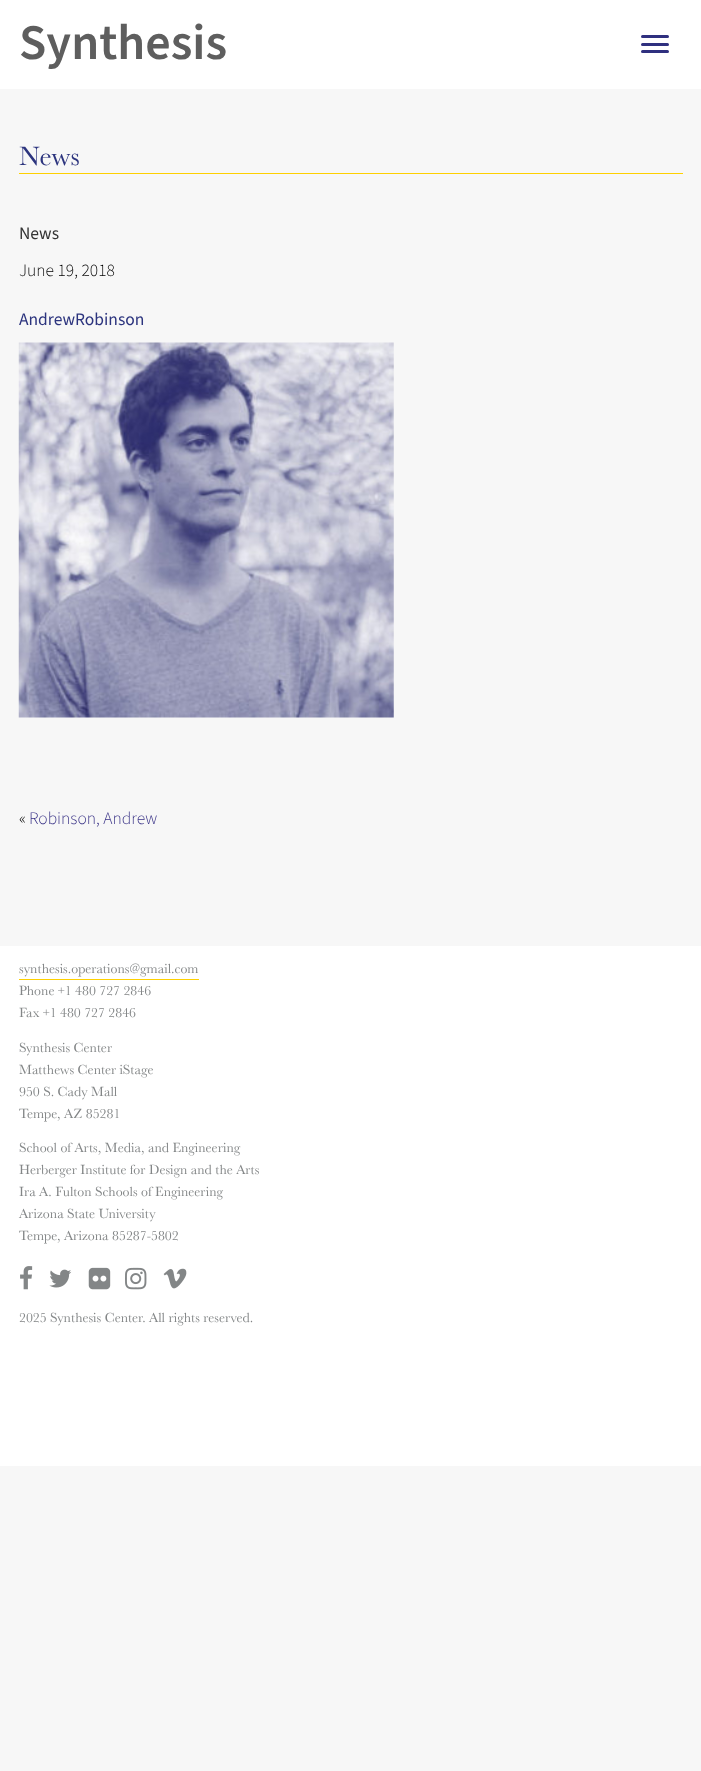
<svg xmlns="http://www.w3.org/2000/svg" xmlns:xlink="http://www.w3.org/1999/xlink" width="701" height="1771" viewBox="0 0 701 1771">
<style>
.cls-1{font:600 50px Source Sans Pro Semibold;fill:#5e5e5e}
.cls-2{font:27.5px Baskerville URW;fill:#2c347e}
.cls-3{font:17.5px Source Sans Pro;fill:#333333}
.cls-4{font:300 17.5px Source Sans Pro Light;fill:#000000}
.cls-5{font:17.5px Source Sans Pro;fill:#2c347e}
.cls-6{font:300 17.5px Source Sans Pro Light;fill:#383186}
.cls-7{font:13.75px Baskerville URW;fill:#838687}
</style>
<rect width="100%" height="100%" fill="#f7f7f7"/>
<rect fill="#ffffff" x="0" y="0" width="701" height="89"/>
<rect fill="#2f307f" x="641" y="35" width="28" height="3" rx="1.5"/>
<rect fill="#2f307f" x="641" y="43" width="28" height="3" rx="1.5"/>
<rect fill="#2f307f" x="641" y="50" width="28" height="3" rx="1.5"/>
<rect fill="#fed000" x="19" y="173" width="664" height="1"/>
<image xlink:href="image0.png" x="18" y="342" width="376" height="376"/>
<rect fill="#ffffff" x="0" y="946" width="701" height="520"/>
<rect fill="#fed000" x="19" y="979" width="180" height="1"/>
<image xlink:href="image1.png" x="20" y="1266" width="13" height="24"/>
<image xlink:href="image2.png" x="49" y="1269" width="23" height="19"/>
<image xlink:href="image3.png" x="88" y="1267" width="23" height="23"/>
<image xlink:href="image4.png" x="125" y="1267" width="22" height="23"/>
<image xlink:href="image5.png" x="163" y="1268" width="24" height="21"/>
<text class="cls-1" x="19" y="59">Synthesis</text>
<text class="cls-2" x="19" y="165">News</text>
<text class="cls-3" x="19" y="239">News</text>
<text class="cls-4" x="19" y="276">June 19, 2018</text>
<text class="cls-5" x="19" y="325">AndrewRobinson</text>
<text class="cls-4" x="19" y="824">«</text>
<text class="cls-6" x="29" y="824">Robinson, Andrew</text>
<text class="cls-7"><tspan x="19" y="973">synthesis.operations@gmail.com</tspan><tspan x="19" y="995">Phone +1 480 727 2846</tspan><tspan x="19" y="1017">Fax +1 480 727 2846</tspan></text>
<text class="cls-7"><tspan x="19" y="1052">Synthesis Center</tspan><tspan x="19" y="1074">Matthews Center iStage</tspan><tspan x="19" y="1096">950 S. Cady Mall</tspan><tspan x="19" y="1118">Tempe, AZ 85281</tspan></text>
<text class="cls-7"><tspan x="19" y="1152">School of Arts, Media, and Engineering</tspan><tspan x="19" y="1174">Herberger Institute for Design and the Arts</tspan><tspan x="19" y="1196">Ira A. Fulton Schools of Engineering</tspan><tspan x="19" y="1218">Arizona State University</tspan><tspan x="19" y="1240">Tempe, Arizona 85287-5802</tspan></text>
<text class="cls-7" x="19" y="1322">2025 Synthesis Center. All rights reserved.</text>
</svg>
